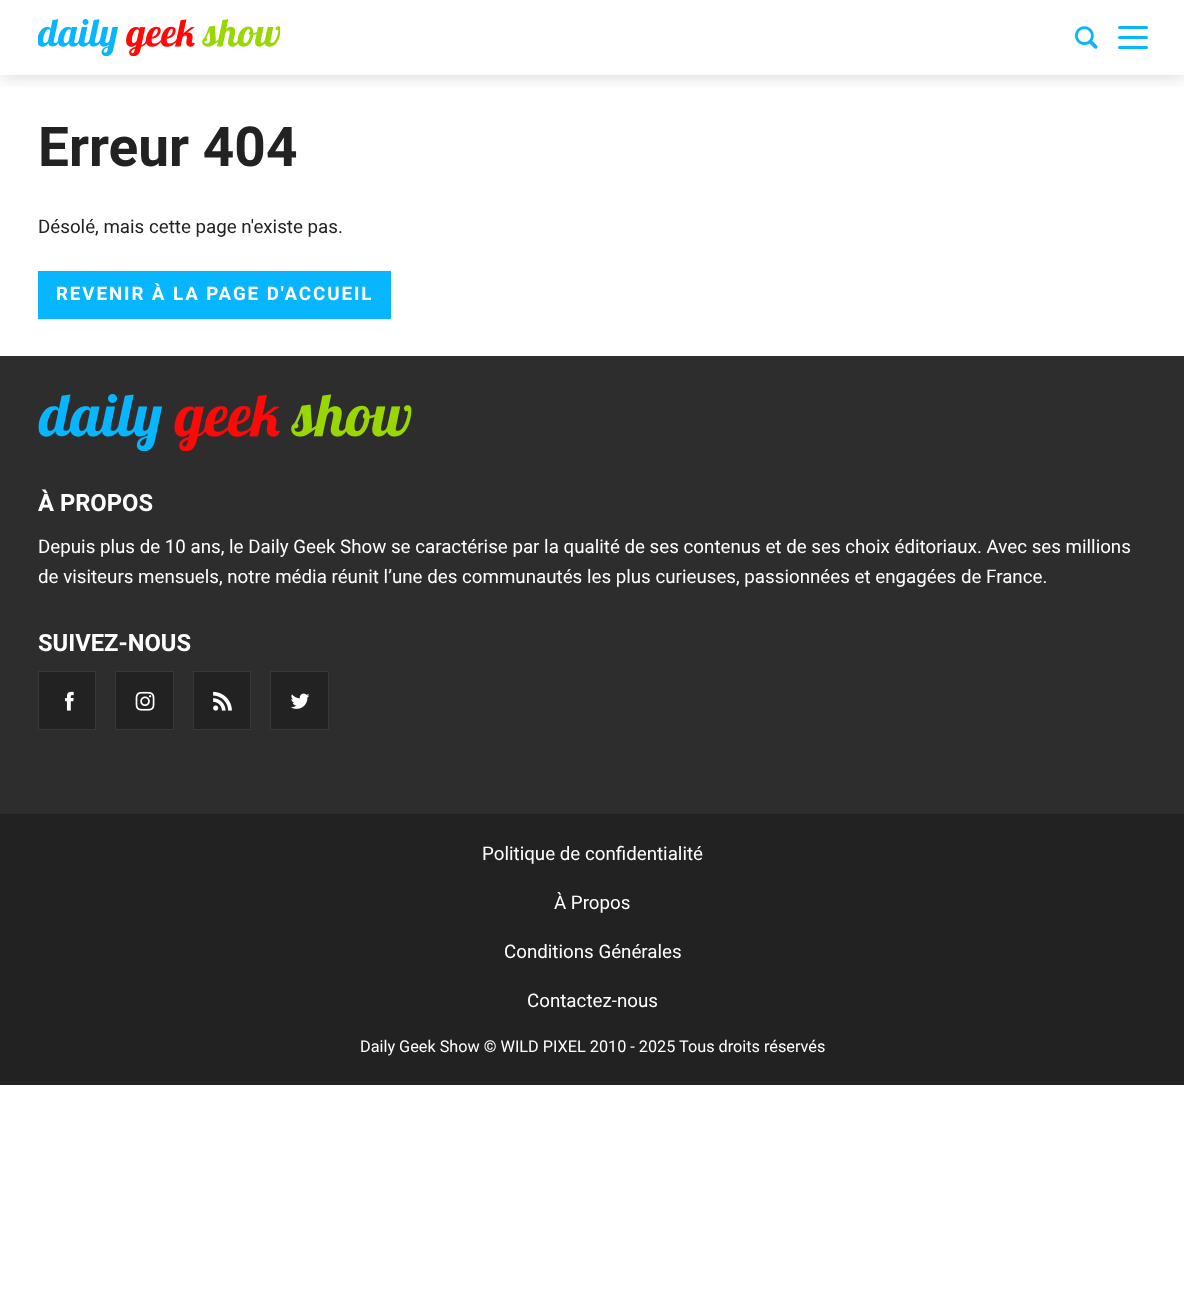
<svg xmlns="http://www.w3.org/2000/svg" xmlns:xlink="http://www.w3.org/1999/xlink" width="1184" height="1293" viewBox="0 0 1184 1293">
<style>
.cls-1{font:bold 55px Roboto;fill:#222222}
.cls-2{font:18.75px Roboto;fill:#222222}
.cls-3{font:bold 18.75px Roboto;letter-spacing:1.9px;fill:#ffffff}
.cls-4{font:bold 23.75px Roboto;fill:#ffffff}
.cls-5{font:18.75px Roboto;fill:#ffffff}
.cls-6{font:16.25px Roboto;fill:#ffffff}
</style>
<defs>
<clipPath id="clip1"><rect x="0" y="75" width="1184" height="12"/></clipPath>
</defs>
<rect width="100%" height="100%" fill="#ffffff"/>
<g clip-path="url(#clip1)">
<rect fill="#222222" fill-opacity="0.2" filter="blur(9.5px)" x="0" y="0" width="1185" height="75"/>
</g>
<image xlink:href="image0.png" x="38" y="19" width="242" height="37"/>
<image xlink:href="image1.png" x="1075" y="26" width="23" height="23"/>
<rect fill="#08b5ff" x="1118" y="36" width="30" height="3" rx="1.5"/>
<rect fill="#08b5ff" x="1118" y="26" width="30" height="3" rx="1.5"/>
<rect fill="#08b5ff" x="1118" y="46" width="30" height="3" rx="1.5"/>
<rect fill="#08b5ff" x="38" y="271" width="353" height="48"/>
<rect fill="#2d2d2d" x="0" y="356" width="1184" height="458"/>
<image xlink:href="image2.png" x="38" y="394" width="374" height="57"/>
<rect fill="#222222" stroke="#383838" x="38.5" y="671.5" width="57" height="58"/>
<image xlink:href="image3.png" x="65" y="691" width="9" height="20"/>
<rect fill="#222222" stroke="#383838" x="115.5" y="671.5" width="58" height="58"/>
<image xlink:href="image4.png" x="135" y="691" width="20" height="20"/>
<rect fill="#222222" stroke="#383838" x="193.5" y="671.5" width="57" height="58"/>
<image xlink:href="image5.png" x="213" y="691" width="19" height="20"/>
<rect fill="#222222" stroke="#383838" x="270.5" y="671.5" width="58" height="58"/>
<image xlink:href="image6.png" x="290" y="693" width="20" height="16"/>
<rect fill="#222222" x="0" y="814" width="1184" height="271"/>
<text class="cls-1" x="38" y="166">Erreur 404</text>
<text class="cls-2" x="38" y="233">Désolé, mais cette page n'existe pas.</text>
<text class="cls-3" x="56" y="300">REVENIR À LA PAGE D'ACCUEIL</text>
<text class="cls-4" x="38" y="511">À PROPOS</text>
<text class="cls-5"><tspan x="38" y="553">Depuis plus de 10 ans, le Daily Geek Show se caractérise par la qualité de ses contenus et de ses choix éditoriaux. Avec ses millions</tspan><tspan x="38" y="583">de visiteurs mensuels, notre média réunit l’une des communautés les plus curieuses, passionnées et engagées de France.</tspan></text>
<text class="cls-4" x="38" y="651">SUIVEZ-NOUS</text>
<text class="cls-5" x="482" y="860">Politique de confidentialité</text>
<text class="cls-5" x="554" y="909">À Propos</text>
<text class="cls-5" x="504" y="958">Conditions Générales</text>
<text class="cls-5" x="527" y="1007">Contactez-nous</text>
<text class="cls-6" x="360" y="1052">Daily Geek Show © WILD PIXEL 2010 - 2025 Tous droits réservés</text>
</svg>
